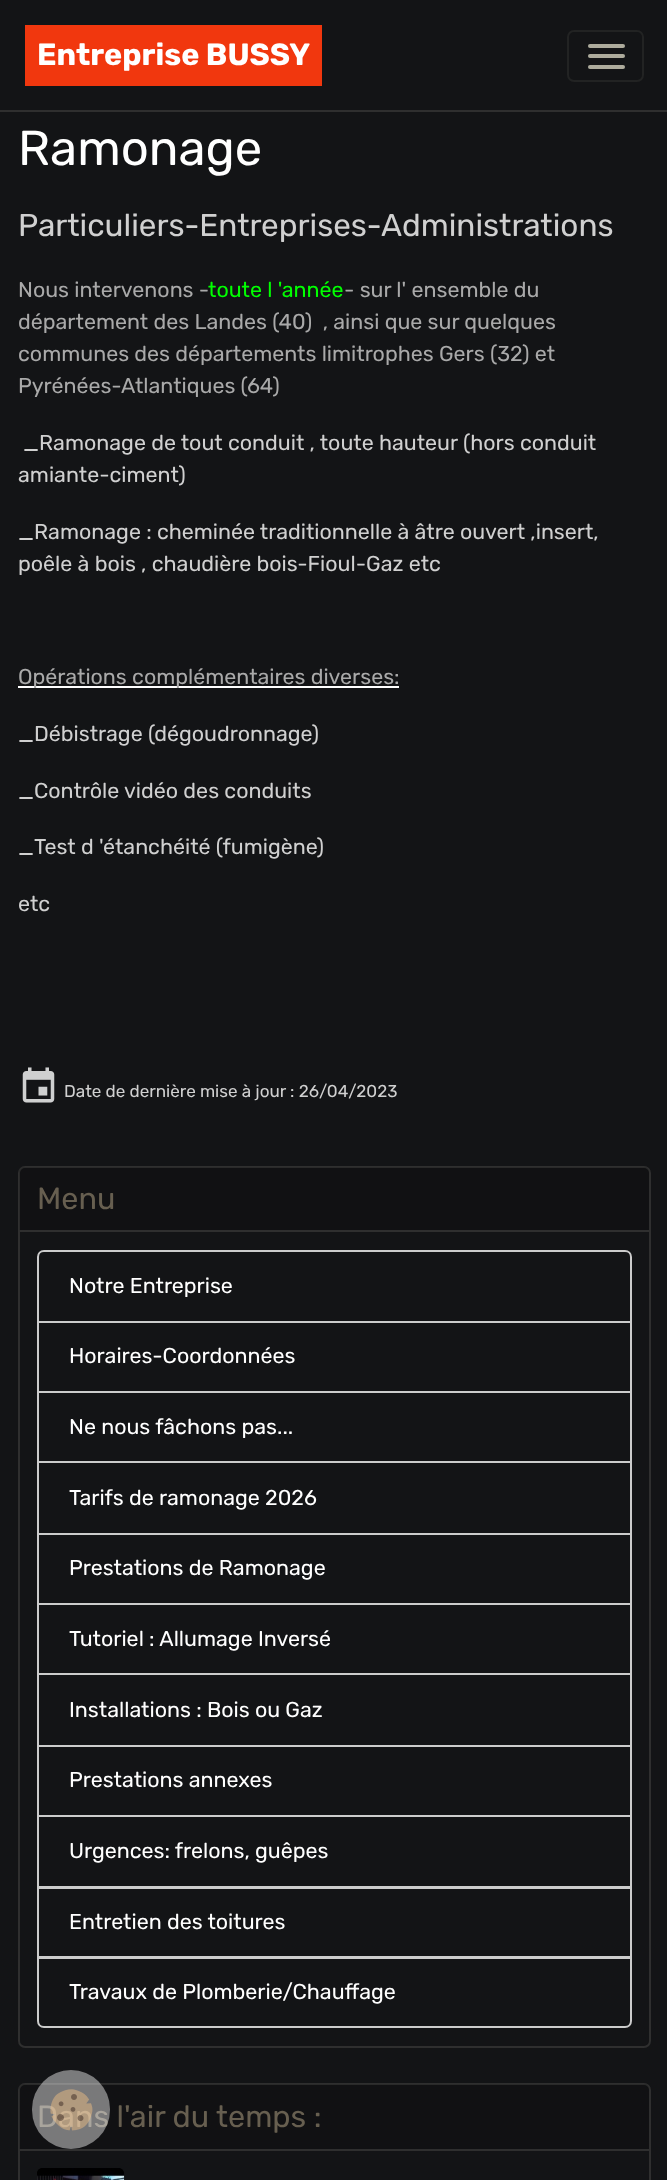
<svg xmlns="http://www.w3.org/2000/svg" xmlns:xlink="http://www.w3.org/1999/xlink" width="667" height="2180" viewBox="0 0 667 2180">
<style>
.cls-1{font:bold 30.6px Rubik;fill:#ffffff}
.cls-2{font:49px Rubik;fill:#ffffff}
.cls-3{font:31.5px Rubik;fill:#d0d0d0}
.cls-4{font:21.45px Rubik;fill:#a9a9a9}
.cls-5{font:21.45px Rubik;fill:#00ff00}
.cls-6{font:21.45px Rubik;fill:#d0d0d0}
.cls-7{font:17.1px Rubik;fill:#d0d0d0}
.cls-8{font:30.6px Rubik;fill:#675f50}
.cls-9{font:21.45px Rubik;fill:#ffffff}
</style>
<rect width="100%" height="100%" fill="#131416"/>
<rect fill="#2f2f2f" x="0" y="110" width="667" height="2"/>
<rect fill="#f1370e" x="25" y="25" width="297" height="61"/>
<rect fill="none" stroke="#222323" stroke-width="2" x="568" y="31" width="75" height="50" rx="6"/>
<rect fill="#adab9c" x="588" y="44" width="37" height="4" rx="2"/>
<rect fill="#adab9c" x="588" y="54" width="37" height="4" rx="2"/>
<rect fill="#adab9c" x="588" y="65" width="37" height="4" rx="2"/>
<rect fill="#ffffff" x="18" y="686" width="381" height="2"/>
<image xlink:href="image0.png" x="22" y="1067" width="33" height="36"/>
<rect fill="none" stroke="#2f2f2f" stroke-width="2" x="19" y="1167" width="631" height="880" rx="6"/>
<path fill="#000000" fill-opacity="0.1" d="M23 1167H645C647 1167 649 1169 649 1171V1232H19V1171C19 1169 21 1167 23 1167Z"/>
<rect fill="#2f2f2f" x="19" y="1230" width="630" height="2"/>
<path fill="none" stroke="#cccccc" stroke-width="2" d="M44 1251H625C628.5 1251 631 1253.5 631 1257V1322H38V1257C38 1253.5 40.5 1251 44 1251Z"/>
<rect fill="none" stroke="#cccccc" stroke-width="2" x="38" y="1322" width="593" height="70"/>
<rect fill="none" stroke="#cccccc" stroke-width="2" x="38" y="1392" width="593" height="70"/>
<rect fill="none" stroke="#cccccc" stroke-width="2" x="38" y="1462" width="593" height="72"/>
<rect fill="none" stroke="#cccccc" stroke-width="2" x="38" y="1534" width="593" height="70"/>
<rect fill="none" stroke="#cccccc" stroke-width="2" x="38" y="1604" width="593" height="70"/>
<rect fill="none" stroke="#cccccc" stroke-width="2" x="38" y="1674" width="593" height="72"/>
<rect fill="none" stroke="#cccccc" stroke-width="2" x="38" y="1746" width="593" height="70"/>
<rect fill="none" stroke="#cccccc" stroke-width="2" x="38" y="1816" width="593" height="71"/>
<rect fill="none" stroke="#cccccc" stroke-width="2" x="38" y="1888" width="593" height="69"/>
<path fill="none" stroke="#cccccc" stroke-width="2" d="M38 1958H631V2021C631 2024.5 628.5 2027 625 2027H44C40.5 2027 38 2024.5 38 2021Z"/>
<rect fill="none" stroke="#2f2f2f" stroke-width="2" x="19" y="2084" width="631" height="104" rx="6"/>
<path fill="#000000" fill-opacity="0.1" d="M23 2084H645C647 2084 649 2086 649 2088V2151H19V2088C19 2086 21 2084 23 2084Z"/>
<rect fill="#2f2f2f" x="19" y="2149" width="630" height="2"/>
<image xlink:href="image1.png" x="37" y="2168" width="88" height="12"/>
<text class="cls-1" x="37" y="65">Entreprise BUSSY</text>
<text class="cls-2" x="18" y="165">Ramonage</text>
<text class="cls-3" x="18" y="236">Particuliers-Entreprises-Administrations</text>
<text class="cls-4" x="18" y="297">Nous intervenons -</text>
<text class="cls-5" x="208" y="297">toute l 'année</text>
<text class="cls-4" x="344" y="297">- sur l' ensemble du</text>
<text class="cls-4" xml:space="preserve"><tspan x="18" y="329">département des Landes (40)  , ainsi que sur quelques</tspan><tspan x="18" y="361">communes des départements limitrophes Gers (32) et</tspan><tspan x="18" y="393">Pyrénées-Atlantiques (64)</tspan></text>
<text class="cls-6" x="23" y="450">_Ramonage de tout conduit , toute hauteur (hors conduit</text>
<text class="cls-6" x="18" y="482">amiante-ciment)</text>
<text class="cls-6"><tspan x="18" y="539">_Ramonage : cheminée traditionnelle à âtre ouvert ,insert,</tspan><tspan x="18" y="571">poêle à bois , chaudière bois-Fioul-Gaz etc</tspan></text>
<text class="cls-4" x="18" y="684">Opérations complémentaires diverses:</text>
<text class="cls-6" x="18" y="741">_Débistrage (dégoudronnage)</text>
<text class="cls-6" x="18" y="798">_Contrôle vidéo des conduits</text>
<text class="cls-6" x="18" y="854">_Test d 'étanchéité (fumigène)</text>
<text class="cls-6" x="18" y="911">etc</text>
<text class="cls-7" x="64" y="1097">Date de dernière mise à jour : 26/04/2023</text>
<text class="cls-8" x="37" y="1209">Menu</text>
<text class="cls-9" x="69" y="1293">Notre Entreprise</text>
<text class="cls-9" x="69" y="1363">Horaires-Coordonnées</text>
<text class="cls-9" x="69" y="1434">Ne nous fâchons pas...</text>
<text class="cls-9" x="69" y="1505">Tarifs de ramonage 2026</text>
<text class="cls-9" x="69" y="1575">Prestations de Ramonage</text>
<text class="cls-9" x="69" y="1646">Tutoriel : Allumage Inversé</text>
<text class="cls-9" x="69" y="1717">Installations : Bois ou Gaz</text>
<text class="cls-9" x="69" y="1787">Prestations annexes</text>
<text class="cls-9" x="69" y="1858">Urgences: frelons, guêpes</text>
<text class="cls-9" x="69" y="1929">Entretien des toitures</text>
<text class="cls-9" x="69" y="1999">Travaux de Plomberie/Chauffage</text>
<text class="cls-8" x="37" y="2127">Dans l'air du temps :</text>
<rect fill="#ffffff" fill-opacity="0.44" x="32" y="2070" width="78" height="79" rx="39"/>
<image xlink:href="image2.png" x="50" y="2089" width="43" height="42"/>
</svg>
